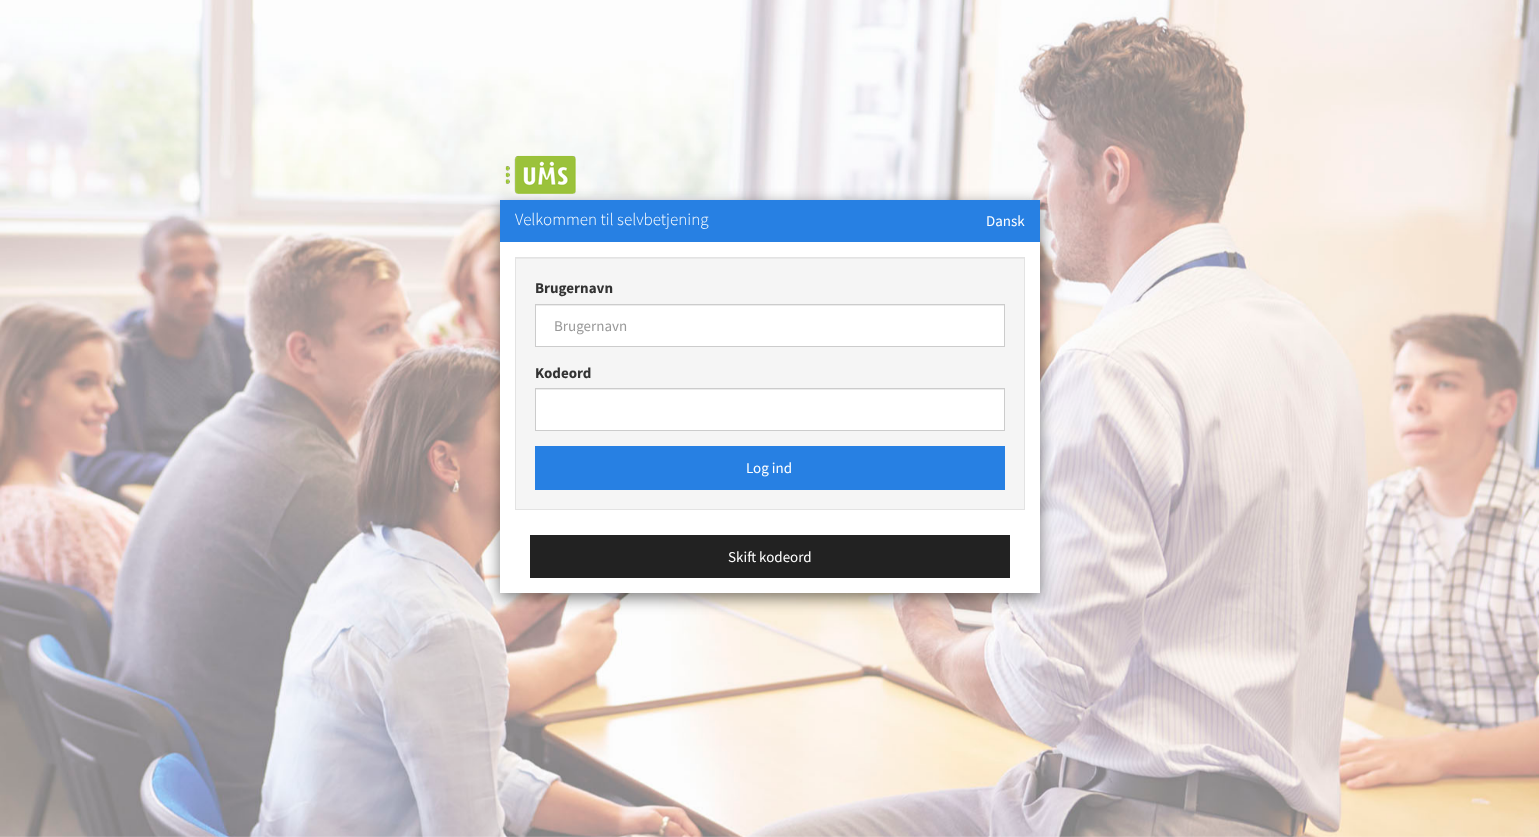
<svg xmlns="http://www.w3.org/2000/svg" xmlns:xlink="http://www.w3.org/1999/xlink" width="1539" height="837" viewBox="0 0 1539 837">
<style>
.cls-1{font:300 17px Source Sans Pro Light;fill:#ffffff}
.cls-2{font:15px Source Sans Pro;fill:#ffffff}
.cls-3{font:bold 15px Source Sans Pro;fill:#333333}
.cls-4{font:15px Source Sans Pro;fill:#999999}
</style>
<rect width="100%" height="100%" fill="#ffffff"/>
<image xlink:href="image0.png" x="0" y="0" width="1539" height="837"/>
<rect fill="#000000" fill-opacity="0.5" filter="blur(7.5px)" x="500" y="205" width="540" height="393"/>
<image xlink:href="image1.png" x="505" y="155" width="71" height="39"/>
<rect fill="#ffffff" x="500" y="242" width="540" height="351"/>
<rect fill="#2780e3" x="500" y="200" width="540" height="42"/>
<rect fill="#f5f5f5" x="516" y="259" width="508" height="250"/>
<rect fill="#e9e9e9" x="516" y="258" width="508" height="1"/>
<rect fill="none" stroke="#e3e3e3" x="515.5" y="257.5" width="509" height="252"/>
<rect fill="#ffffff" x="536" y="306" width="468" height="40"/>
<rect fill="#ececec" x="536" y="305" width="468" height="1"/>
<rect fill="none" stroke="#cccccc" x="535.5" y="304.5" width="469" height="42"/>
<rect fill="#ffffff" x="536" y="390" width="468" height="40"/>
<rect fill="#ececec" x="536" y="389" width="468" height="1"/>
<rect fill="none" stroke="#cccccc" x="535.5" y="388.5" width="469" height="42"/>
<rect fill="#2780e3" x="535" y="446" width="470" height="44"/>
<rect fill="#222222" x="530" y="535" width="480" height="43"/>
<text class="cls-1" x="515" y="225">Velkommen til selvbetjening</text>
<text class="cls-2" x="986" y="226">Dansk</text>
<text class="cls-3" x="535" y="293">Brugernavn</text>
<text class="cls-4" x="554" y="331">Brugernavn</text>
<text class="cls-3" x="535" y="378">Kodeord</text>
<text class="cls-2" x="746" y="473">Log ind</text>
<text class="cls-2" x="728" y="562">Skift kodeord</text>
</svg>
